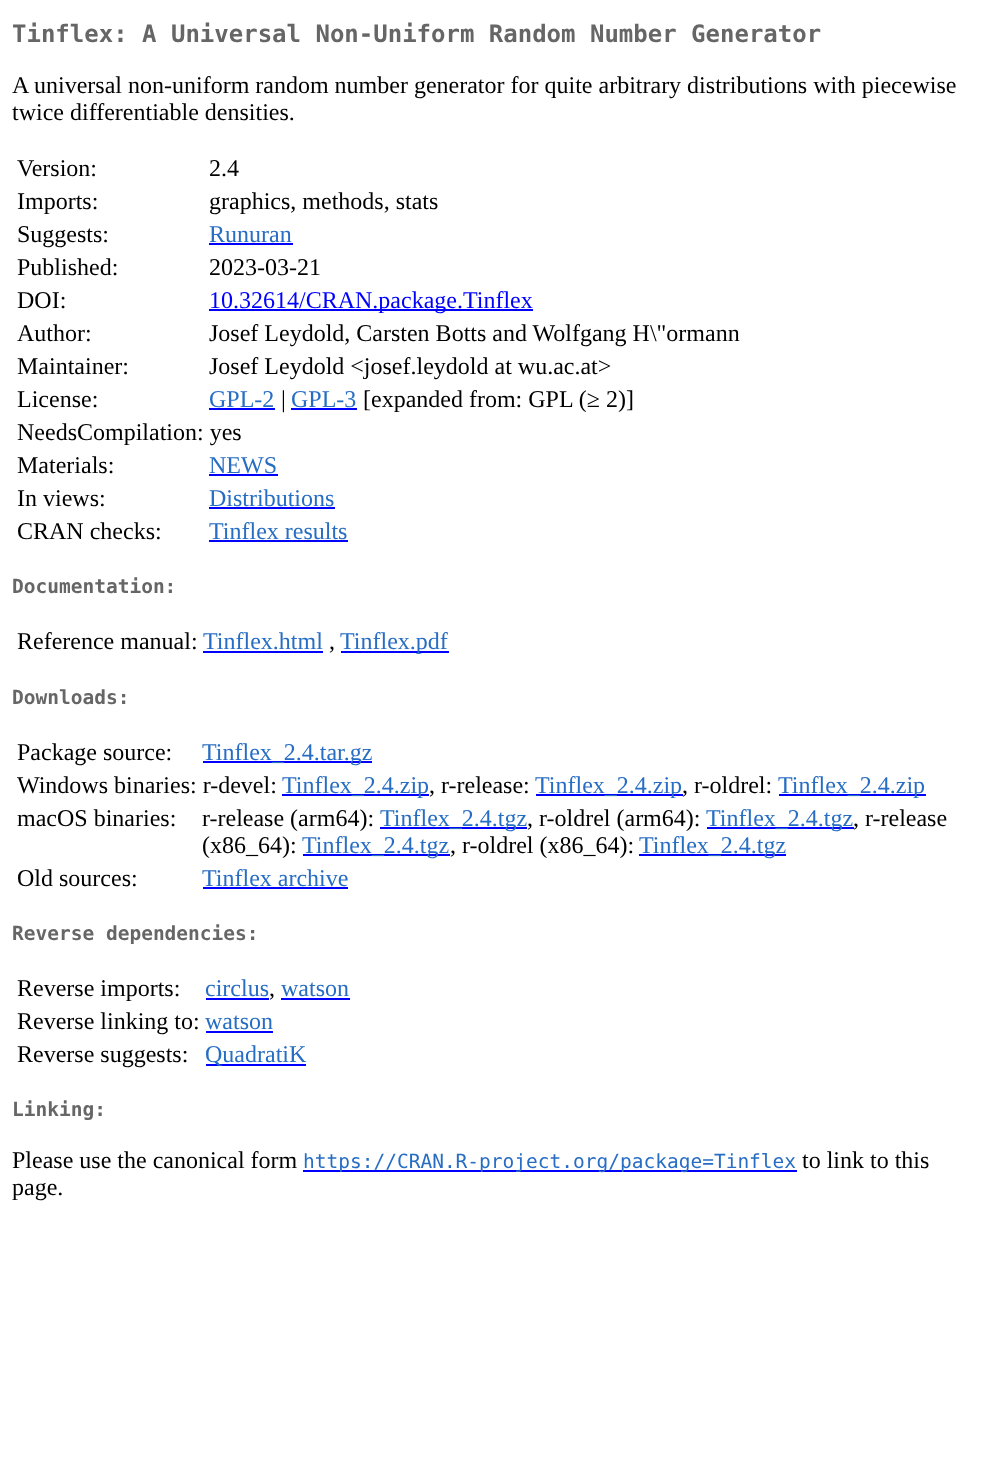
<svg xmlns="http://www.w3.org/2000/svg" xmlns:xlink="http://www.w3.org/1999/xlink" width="986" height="1470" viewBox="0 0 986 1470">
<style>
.cls-1{font:bold 24px DejaVu Sans Mono;fill:#666666}
.cls-2{font:24px Liberation Serif;fill:#000000}
.cls-3{font:24px Liberation Serif;fill:#276dc3}
.cls-4{font:24px Liberation Serif;fill:#0000ff}
.cls-5{font:bold 19.5px DejaVu Sans Mono;fill:#666666}
.cls-6{font:19.5px DejaVu Sans Mono;fill:#276dc3}
</style>
<rect width="100%" height="100%" fill="#ffffff"/>
<rect fill="#0000ff" x="209" y="243" width="84" height="2"/>
<rect fill="#0000ff" x="209" y="309" width="324" height="2"/>
<rect fill="#0000ff" x="209" y="408" width="66" height="2"/>
<rect fill="#0000ff" x="291" y="408" width="66" height="2"/>
<rect fill="#0000ff" x="209" y="474" width="69" height="2"/>
<rect fill="#0000ff" x="209" y="507" width="126" height="2"/>
<rect fill="#0000ff" x="209" y="540" width="139" height="2"/>
<rect fill="#0000ff" x="203" y="651" width="120" height="2"/>
<rect fill="#0000ff" x="341" y="651" width="108" height="2"/>
<rect fill="#0000ff" x="203" y="761" width="169" height="2"/>
<rect fill="#0000ff" x="282" y="794" width="147" height="2"/>
<rect fill="#0000ff" x="536" y="794" width="147" height="2"/>
<rect fill="#0000ff" x="779" y="794" width="147" height="2"/>
<rect fill="#0000ff" x="380" y="827" width="147" height="2"/>
<rect fill="#0000ff" x="707" y="827" width="147" height="2"/>
<rect fill="#0000ff" x="303" y="854" width="147" height="2"/>
<rect fill="#0000ff" x="639" y="854" width="147" height="2"/>
<rect fill="#0000ff" x="203" y="887" width="145" height="2"/>
<rect fill="#0000ff" x="206" y="998" width="63" height="2"/>
<rect fill="#0000ff" x="281" y="998" width="69" height="2"/>
<rect fill="#0000ff" x="206" y="1031" width="67" height="2"/>
<rect fill="#0000ff" x="206" y="1064" width="100" height="2"/>
<rect fill="#0000ff" x="303" y="1170" width="494" height="2"/>
<text class="cls-1" x="12" y="42">Tinflex: A Universal Non-Uniform Random Number Generator</text>
<text class="cls-2"><tspan x="12" y="93">A universal non-uniform random number generator for quite arbitrary distributions with piecewise</tspan><tspan x="12" y="120">twice differentiable densities.</tspan></text>
<text class="cls-2" x="17" y="176">Version:</text>
<text class="cls-2" x="209" y="176">2.4</text>
<text class="cls-2" x="17" y="209">Imports:</text>
<text class="cls-2" x="209" y="209">graphics, methods, stats</text>
<text class="cls-2" x="17" y="242">Suggests:</text>
<text class="cls-3" x="209" y="242">Runuran</text>
<text class="cls-2" x="17" y="275">Published:</text>
<text class="cls-2" x="209" y="275">2023-03-21</text>
<text class="cls-2" x="17" y="308">DOI:</text>
<text class="cls-4" x="209" y="308">10.32614/CRAN.package.Tinflex</text>
<text class="cls-2" x="17" y="341">Author:</text>
<text class="cls-2" x="209" y="341">Josef Leydold, Carsten Botts and Wolfgang H\"ormann</text>
<text class="cls-2" x="17" y="374">Maintainer:</text>
<text class="cls-2" x="209" y="374">Josef Leydold &lt;josef.leydold at wu.ac.at&gt;</text>
<text class="cls-2" x="17" y="407">License:</text>
<text class="cls-3" x="209" y="407">GPL-2</text>
<text class="cls-2" x="281" y="407">|</text>
<text class="cls-3" x="291" y="407">GPL-3</text>
<text class="cls-2" x="363" y="407">[expanded from: GPL (≥ 2)]</text>
<text class="cls-2"><tspan x="17" y="440">NeedsCompilation: yes</tspan><tspan x="17" y="473">Materials:</tspan></text>
<text class="cls-3" x="209" y="473">NEWS</text>
<text class="cls-2" x="17" y="506">In views:</text>
<text class="cls-3" x="209" y="506">Distributions</text>
<text class="cls-2" x="17" y="539">CRAN checks:</text>
<text class="cls-3" x="209" y="539">Tinflex results</text>
<text class="cls-5" x="12" y="593">Documentation:</text>
<text class="cls-2" x="17" y="649">Reference manual:</text>
<text class="cls-3" x="203" y="649">Tinflex.html</text>
<text class="cls-2" x="329" y="649">,</text>
<text class="cls-3" x="340" y="649">Tinflex.pdf</text>
<text class="cls-5" x="12" y="704">Downloads:</text>
<text class="cls-2" x="17" y="760">Package source:</text>
<text class="cls-3" x="202" y="760">Tinflex_2.4.tar.gz</text>
<text class="cls-2" x="17" y="793">Windows binaries: r-devel:</text>
<text class="cls-3" x="282" y="793">Tinflex_2.4.zip</text>
<text class="cls-2" x="429" y="793">, r-release:</text>
<text class="cls-3" x="535" y="793">Tinflex_2.4.zip</text>
<text class="cls-2" x="682" y="793">, r-oldrel:</text>
<text class="cls-3" x="778" y="793">Tinflex_2.4.zip</text>
<text class="cls-2" x="17" y="826">macOS binaries:</text>
<text class="cls-2" x="202" y="826">r-release (arm64):</text>
<text class="cls-3" x="380" y="826">Tinflex_2.4.tgz</text>
<text class="cls-2" x="527" y="826">, r-oldrel (arm64):</text>
<text class="cls-3" x="706" y="826">Tinflex_2.4.tgz</text>
<text class="cls-2" x="853" y="826">, r-release</text>
<text class="cls-2" x="202" y="853">(x86_64):</text>
<text class="cls-3" x="302" y="853">Tinflex_2.4.tgz</text>
<text class="cls-2" x="450" y="853">, r-oldrel (x86_64):</text>
<text class="cls-3" x="639" y="853">Tinflex_2.4.tgz</text>
<text class="cls-2" x="17" y="886">Old sources:</text>
<text class="cls-3" x="202" y="886">Tinflex archive</text>
<text class="cls-5" x="12" y="940">Reverse dependencies:</text>
<text class="cls-2" x="17" y="996">Reverse imports:</text>
<text class="cls-3" x="205" y="996">circlus</text>
<text class="cls-2" x="269" y="996">,</text>
<text class="cls-3" x="281" y="996">watson</text>
<text class="cls-2" x="17" y="1029">Reverse linking to:</text>
<text class="cls-3" x="205" y="1029">watson</text>
<text class="cls-2" x="17" y="1062">Reverse suggests:</text>
<text class="cls-3" x="205" y="1062">QuadratiK</text>
<text class="cls-5" x="12" y="1116">Linking:</text>
<text class="cls-2" x="12" y="1168">Please use the canonical form</text>
<text class="cls-6" x="303" y="1168">https://CRAN.R-project.org/package=Tinflex</text>
<text class="cls-2" x="802" y="1168">to link to this</text>
<text class="cls-2" x="12" y="1195">page.</text>
</svg>
